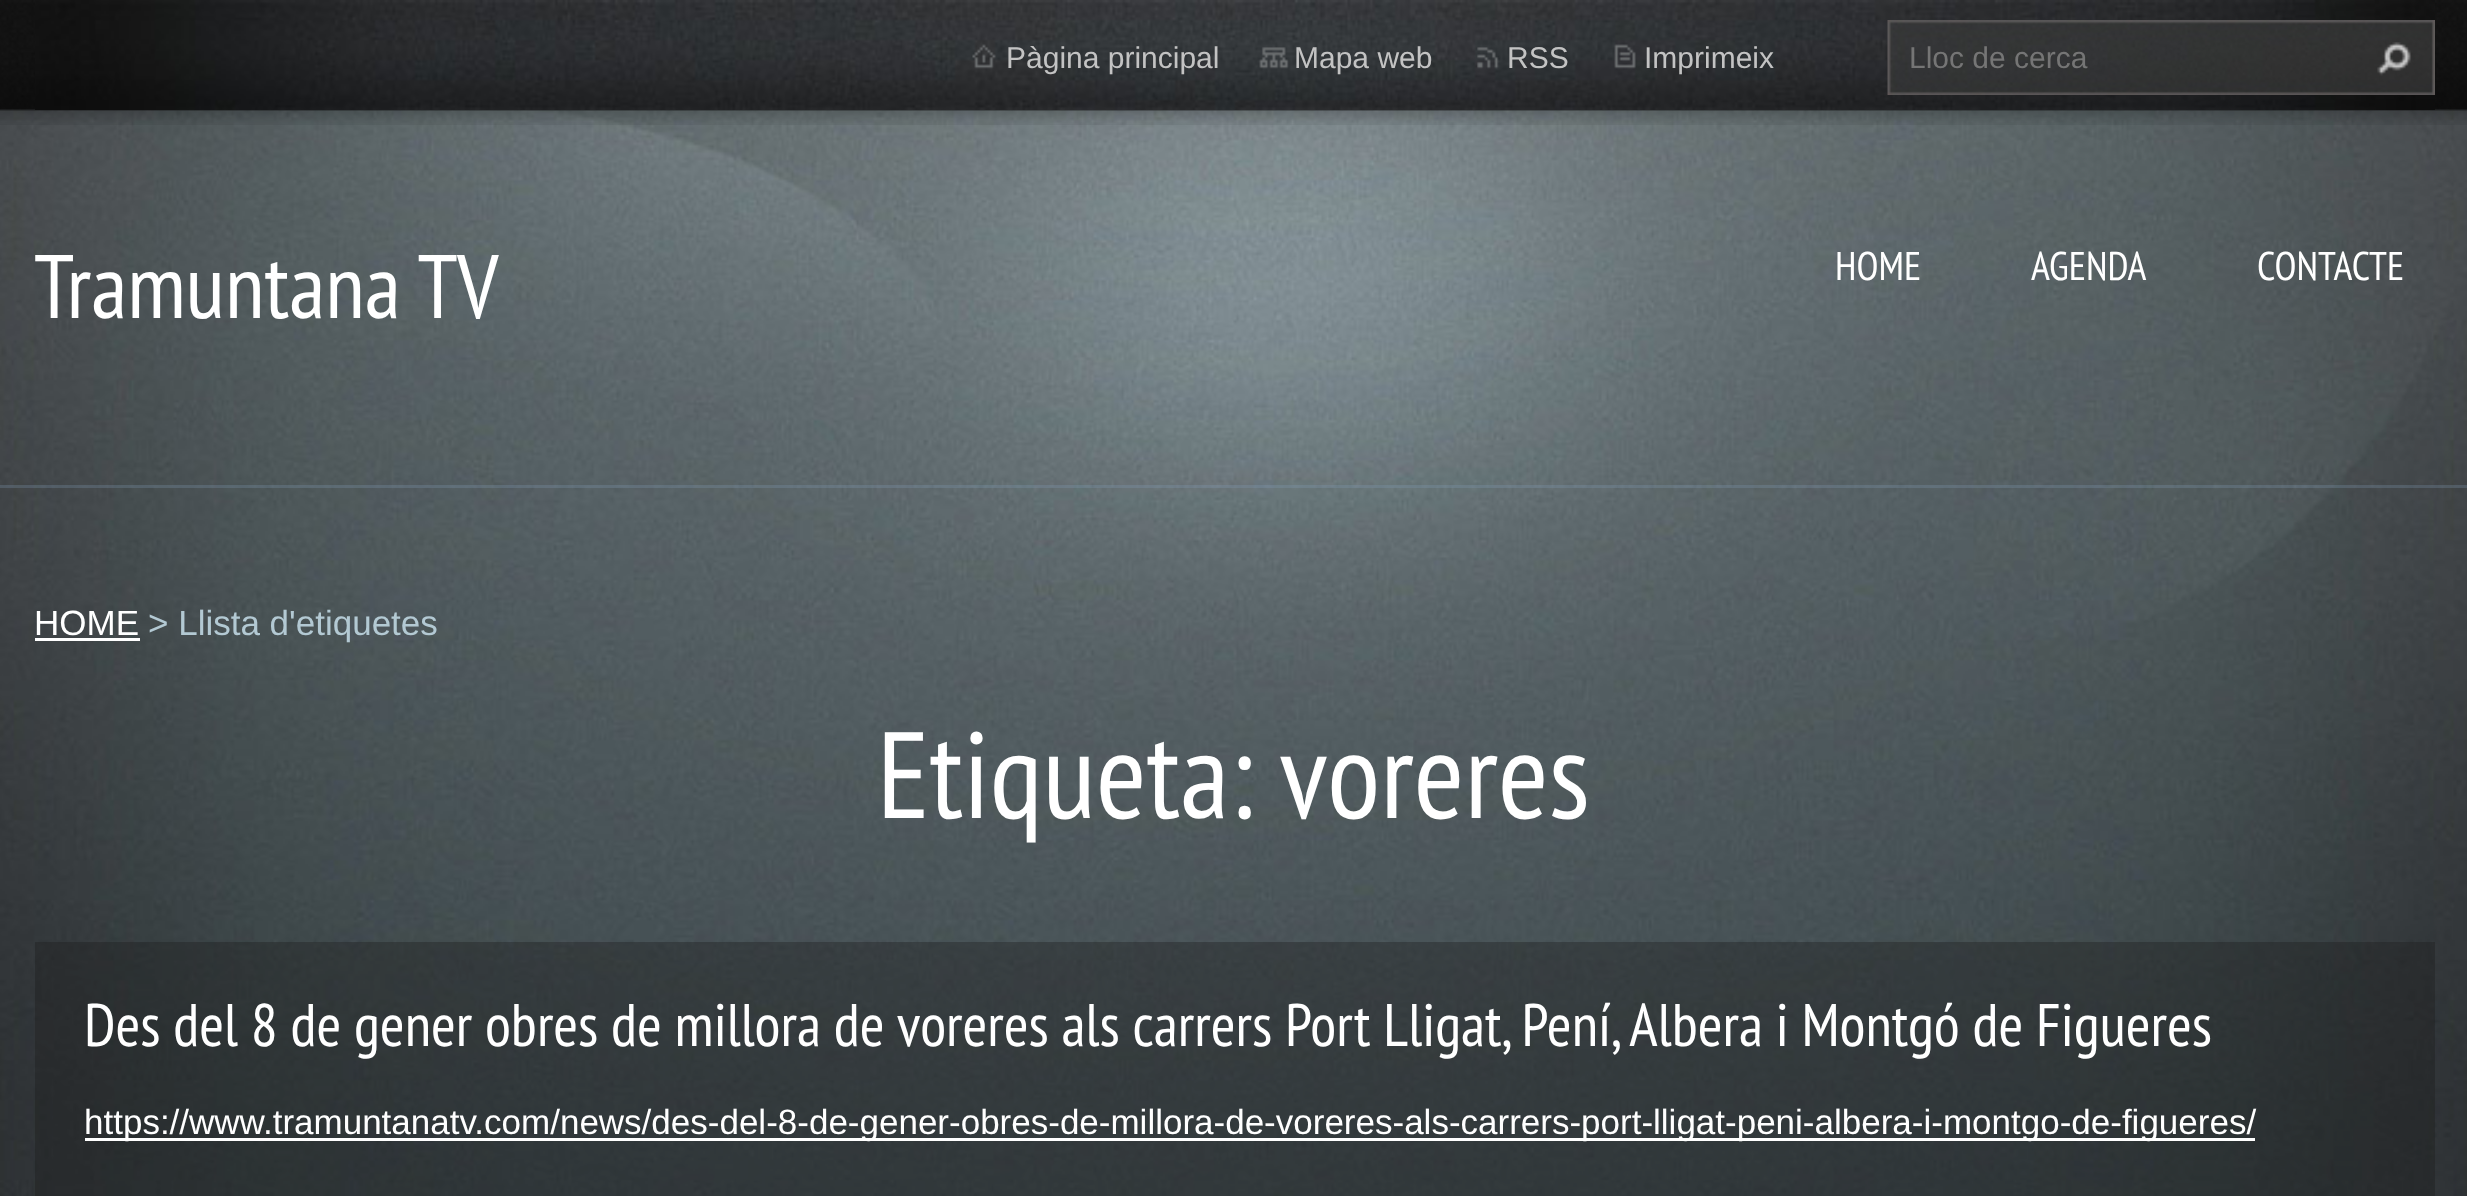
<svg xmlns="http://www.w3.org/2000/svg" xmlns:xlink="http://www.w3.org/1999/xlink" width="2467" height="1196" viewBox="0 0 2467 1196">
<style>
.cls-1{font:30px Liberation Sans;fill:#c3c3c3}
.cls-2{font:30px Liberation Sans;fill:#757575}
.cls-3{font:90px PT Sans Narrow;fill:#ffffff}
.cls-4{font:40px PT Sans Narrow;fill:#ffffff}
.cls-5{font:35px Liberation Sans;fill:#ffffff}
.cls-6{font:35px Liberation Sans;fill:#b3c9d3}
.cls-7{font:122.5px PT Sans Narrow;fill:#ffffff}
.cls-8{font:60px PT Sans Narrow;fill:#ffffff}
</style>
<rect width="100%" height="100%" fill="#ffffff"/>
<image xlink:href="image0.png" x="0" y="109" width="2467" height="1087"/>
<rect fill="#839eb9" fill-opacity="0.26" x="0" y="485" width="2467" height="3"/>
<image xlink:href="image1.png" x="0" y="0" width="2467" height="125"/>
<image xlink:href="image2.png" x="35" y="0" width="2400" height="110"/>
<image xlink:href="image3.png" x="972" y="44" width="24" height="25"/>
<image xlink:href="image4.png" x="1259" y="47" width="30" height="22"/>
<image xlink:href="image5.png" x="1477" y="47" width="22" height="22"/>
<image xlink:href="image6.png" x="1614" y="44" width="22" height="25"/>
<image xlink:href="image7.png" x="1887" y="20" width="548" height="75"/>
<image xlink:href="image8.png" x="2377" y="42" width="34" height="34"/>
<rect fill="#ffffff" x="35" y="638" width="105" height="3"/>
<rect fill="#1c1c1c" fill-opacity="0.36" x="35" y="942" width="2400" height="254"/>
<rect fill="#ffffff" x="85" y="1138" width="2170" height="3"/>
<text class="cls-1" x="1006" y="68">Pàgina principal</text>
<text class="cls-1" x="1294" y="68">Mapa web</text>
<text class="cls-1" x="1507" y="68">RSS</text>
<text class="cls-1" x="1644" y="68">Imprimeix</text>
<text class="cls-2" x="1909" y="68">Lloc de cerca</text>
<text class="cls-3" x="34" y="318">Tramuntana TV</text>
<text class="cls-4" x="1835" y="280">HOME</text>
<text class="cls-4" x="2031" y="280">AGENDA</text>
<text class="cls-4" x="2257" y="280">CONTACTE</text>
<text class="cls-5" x="34" y="635">HOME</text>
<text class="cls-6" x="148" y="635">&gt; Llista d'etiquetes</text>
<text class="cls-7" x="877" y="818">Etiqueta: voreres</text>
<text class="cls-8" x="84" y="1046">Des del 8 de gener obres de millora de voreres als carrers Port Lligat, Pení, Albera i Montgó de Figueres</text>
<text class="cls-5" x="84" y="1134">https://www.tramuntanatv.com/news/des-del-8-de-gener-obres-de-millora-de-voreres-als-carrers-port-lligat-peni-albera-i-montgo-de-figueres/</text>
</svg>
